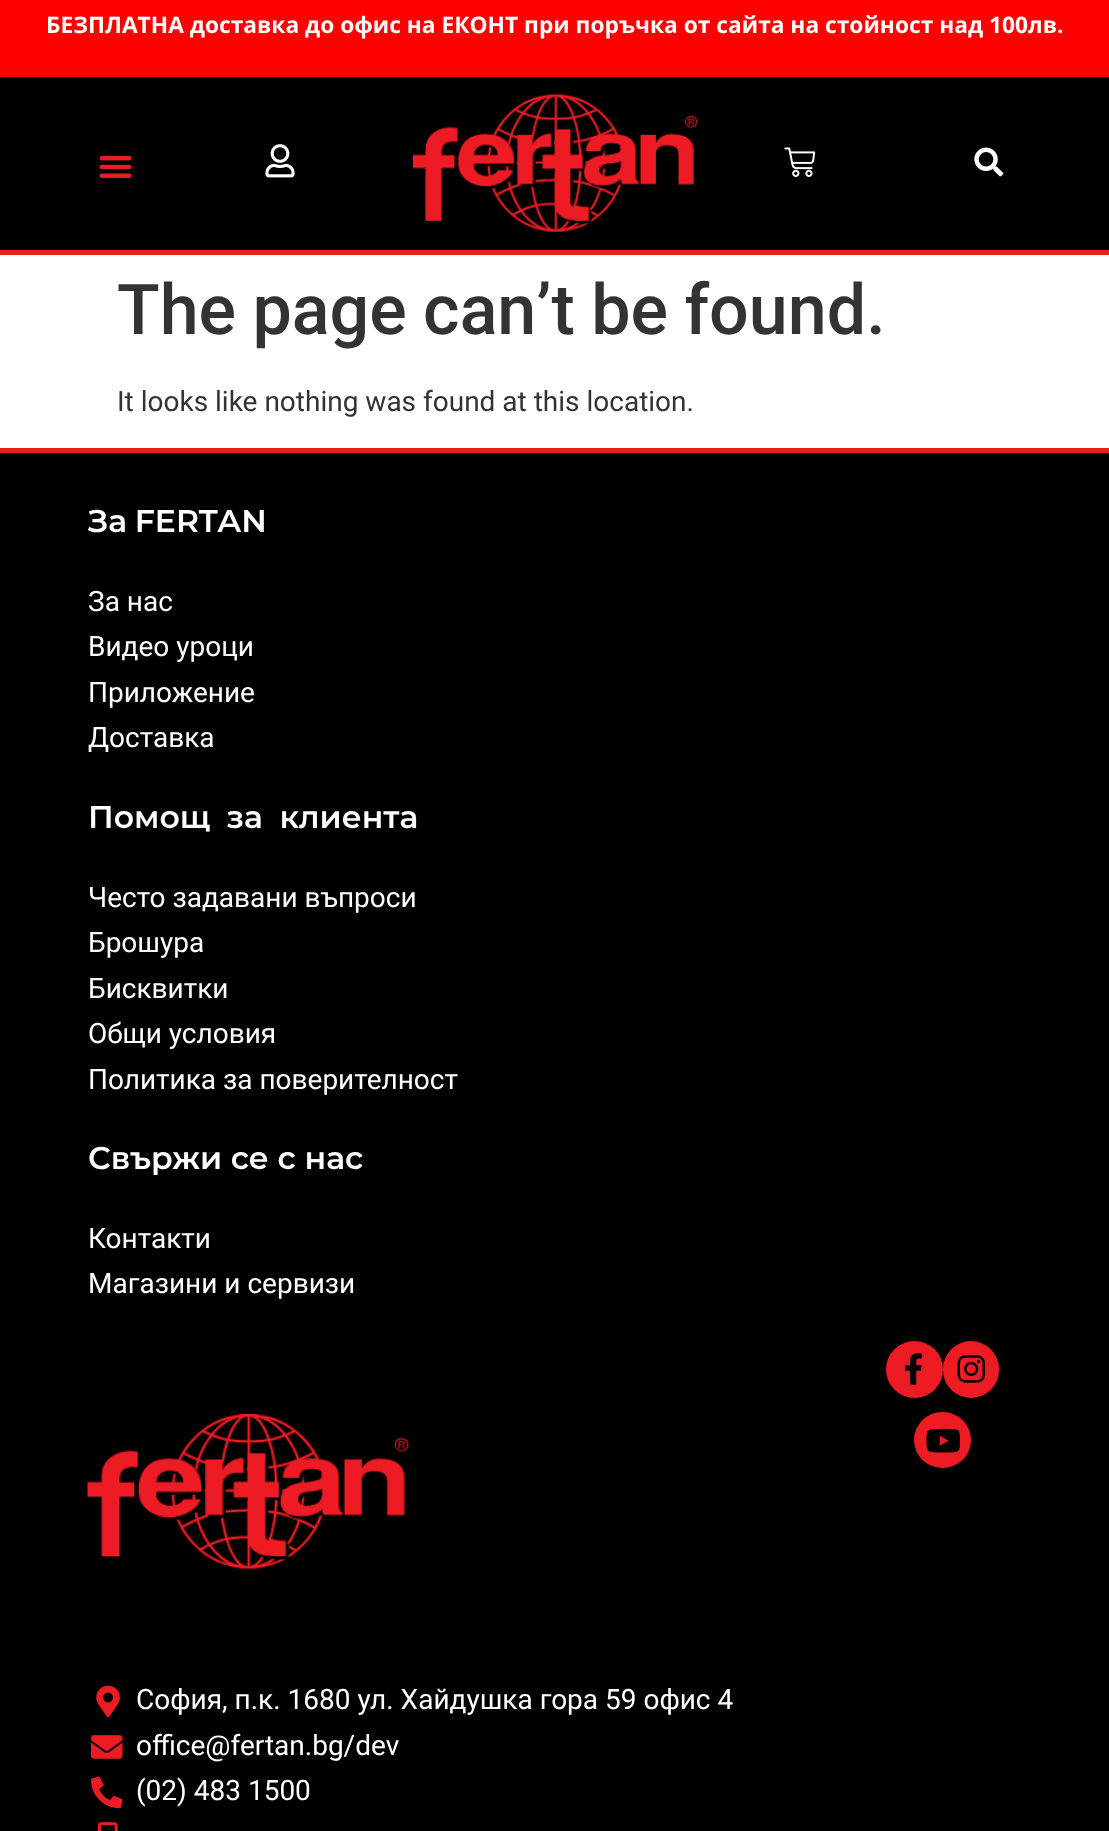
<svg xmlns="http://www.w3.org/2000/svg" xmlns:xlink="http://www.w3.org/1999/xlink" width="1109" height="1831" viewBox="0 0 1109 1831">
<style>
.cls-1{font:bold 22.75px Open Sans;fill:#ffffff}
.cls-2{font:500 70px Roboto;fill:#333333}
.cls-3{font:28px Roboto;fill:#333333}
.cls-4{font:600 31.5px Montserrat;fill:#ffffff}
.cls-5{font:28px Roboto;fill:#ffffff}
</style>
<rect width="100%" height="100%" fill="#ffffff"/>
<rect fill="#ff0000" x="0" y="0" width="1109" height="77"/>
<rect fill="#000000" x="0" y="77" width="1109" height="173"/>
<rect fill="#ed1c24" x="0" y="250" width="1109" height="5"/>
<image xlink:href="image0.png" x="99" y="156" width="33" height="22"/>
<image xlink:href="image1.png" x="265" y="144" width="30" height="34"/>
<image xlink:href="image2.png" x="413" y="94" width="285" height="138"/>
<image xlink:href="image3.png" x="784" y="147" width="32" height="30"/>
<image xlink:href="image4.png" x="974" y="147" width="30" height="30"/>
<rect fill="#000000" x="0" y="453" width="1109" height="1378"/>
<rect fill="#ed1c24" x="0" y="448" width="1109" height="5"/>
<image xlink:href="image5.png" x="87" y="1414" width="322" height="155"/>
<circle fill="#ed1c24" cx="914.5" cy="1369.5" r="28.5"/>
<image xlink:href="image6.png" x="905" y="1353" width="17" height="32"/>
<rect fill="#ed1c24" x="943" y="1341" width="56" height="57" rx="28"/>
<image xlink:href="image7.png" x="957" y="1355" width="29" height="28"/>
<rect fill="#ed1c24" x="914" y="1412" width="57" height="56" rx="28"/>
<image xlink:href="image8.png" x="926" y="1428" width="35" height="25"/>
<image xlink:href="image9.png" x="96" y="1685" width="24" height="33"/>
<image xlink:href="image10.png" x="91" y="1735" width="32" height="24"/>
<image xlink:href="image11.png" x="91" y="1776" width="32" height="33"/>
<image xlink:href="image12.png" x="98" y="1822" width="20" height="9"/>
<text class="cls-1" x="46" y="33">БЕЗПЛАТНА доставка до офис на ЕКОНТ при поръчка от сайта на стойност над 100лв.</text>
<text class="cls-2" x="117" y="334" word-spacing="-1">The page can’t be found.</text>
<text class="cls-3" x="117" y="411">It looks like nothing was found at this location.</text>
<text class="cls-4" x="88" y="532" word-spacing="-1">За FERTAN</text>
<text class="cls-5"><tspan x="88" y="611">За нас</tspan><tspan x="88" y="656">Видео уроци</tspan><tspan x="88" y="702">Приложение</tspan><tspan x="88" y="747">Доставка</tspan></text>
<text class="cls-4" x="88" y="828" word-spacing="8">Помощ за клиента</text>
<text class="cls-5"><tspan x="88" y="907">Често задавани въпроси</tspan><tspan x="88" y="952">Брошура</tspan><tspan x="88" y="998">Бисквитки</tspan><tspan x="88" y="1043">Общи условия</tspan><tspan x="88" y="1089">Политика за поверителност</tspan></text>
<text class="cls-4" x="88" y="1169">Свържи се с нас</text>
<text class="cls-5"><tspan x="88" y="1248">Контакти</tspan><tspan x="88" y="1293">Магазини и сервизи</tspan></text>
<text class="cls-5"><tspan x="136" y="1709">София, п.к. 1680 ул. Хайдушка гора 59 офис 4</tspan><tspan x="136" y="1755">office@fertan.bg/dev</tspan><tspan x="136" y="1800">(02) 483 1500</tspan></text>
</svg>
